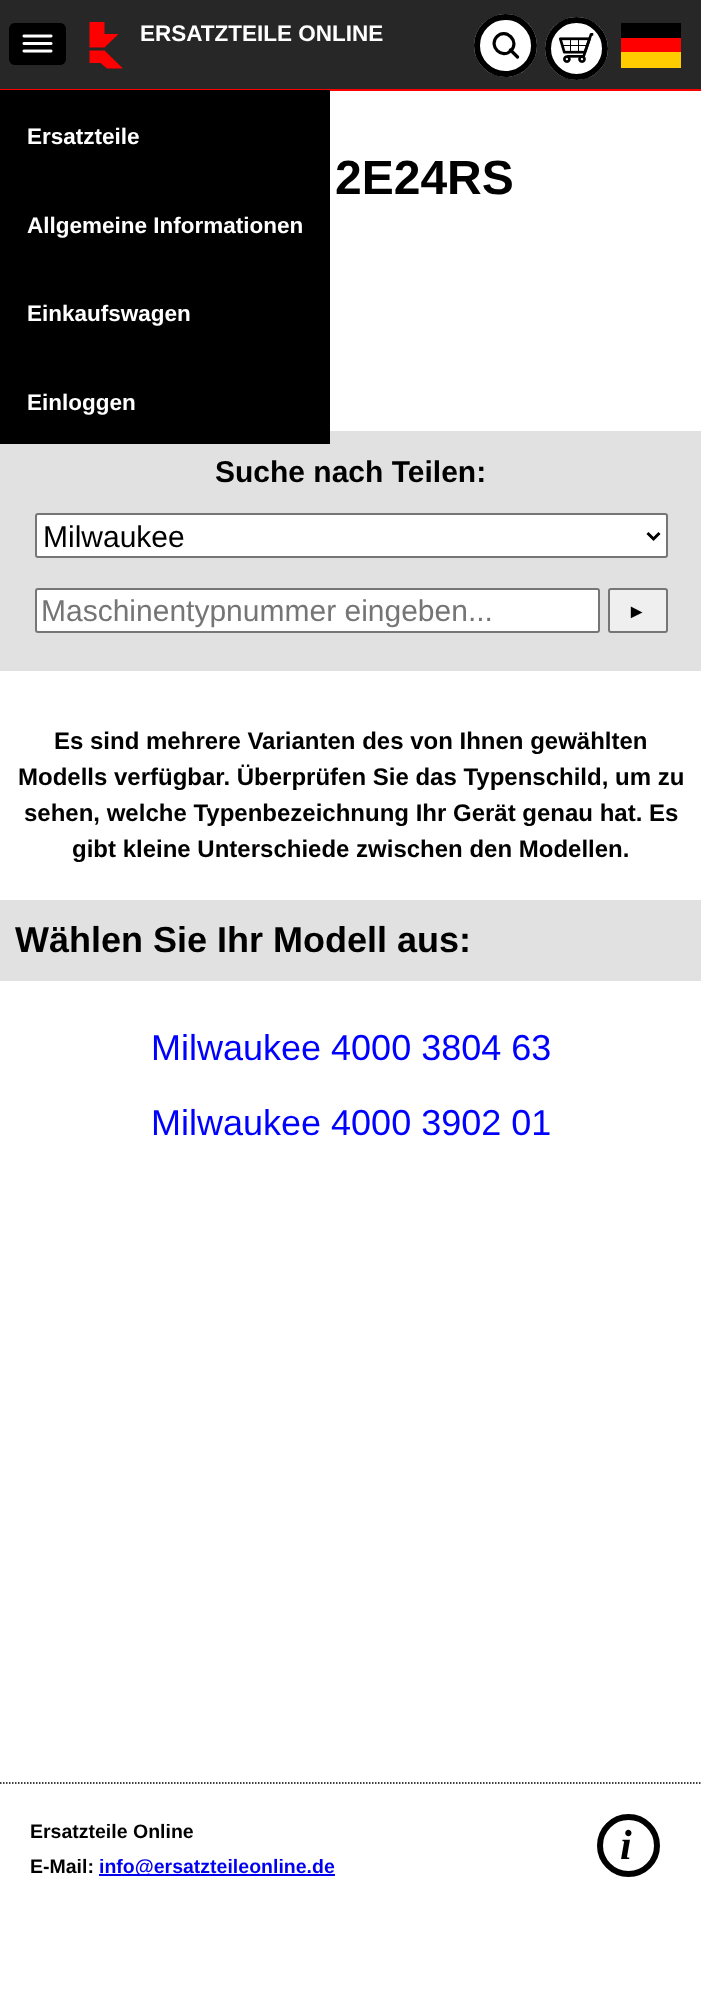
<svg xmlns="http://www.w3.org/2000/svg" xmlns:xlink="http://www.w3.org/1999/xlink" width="701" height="1992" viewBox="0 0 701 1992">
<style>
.cls-1{font:bold 22.5px Liberation Sans;fill:#ffffff}
.cls-2{font:bold 48px Liberation Sans;fill:#000000}
.cls-3{font:bold 30px Liberation Sans;fill:#000000}
.cls-4{font:30px Liberation Sans;fill:#000000}
.cls-5{font:30px Liberation Sans;fill:#757575}
.cls-6{font:19.5px Liberation Sans;fill:#000000}
.cls-7{font:bold 24px Liberation Sans;fill:#000000}
.cls-8{font:bold 36px Liberation Sans;fill:#000000}
.cls-9{font:36px Liberation Sans;fill:#0000ff}
.cls-10{font:bold 19.5px Liberation Sans;fill:#000000}
.cls-11{font:bold 19.5px Liberation Sans;fill:#0000ee}
.cls-12{font:italic bold 42px Liberation Serif;fill:#000000}
</style>
<rect width="100%" height="100%" fill="#ffffff"/>
<rect fill="#272727" x="0" y="0" width="701" height="89"/>
<rect fill="#ff0000" x="0" y="89" width="701" height="2"/>
<path fill="#ff0000" d="M89.5 22H104.5V34H118.5L104.5 47.5H89.5ZM89.5 50.5H104.5L123 68.5H107L100.5 63H89.5Z"/>
<circle fill="#ffffff" cx="505.5" cy="45.5" r="31.5"/>
<path fill="none" stroke="#000000" stroke-width="3.2" stroke-linecap="round" stroke-linejoin="round" d="M517.5 57L510.5 50M511 50.5C520 41.5 506 27.5 497 36.5C488 46 502 60 511 50.5Z"/>
<circle fill="none" stroke="#000000" stroke-width="6" cx="505.5" cy="45.5" r="28.5"/>
<circle fill="#ffffff" cx="576.5" cy="48.5" r="31.5"/>
<image xlink:href="image0.png" x="559" y="33" width="35" height="30"/>
<circle fill="none" stroke="#000000" stroke-width="6" cx="576.5" cy="48.5" r="28.5"/>
<rect fill="#ffcc00" x="621" y="52" width="60" height="16"/>
<rect fill="#000001" x="621" y="23" width="60" height="15"/>
<rect fill="#ff0000" x="621" y="38" width="60" height="14"/>
<image xlink:href="image1.png" x="9" y="23" width="57" height="42"/>
<rect fill="#e2e1e1" x="0" y="431" width="701" height="240"/>
<rect fill="#000000" x="0" y="90" width="330" height="354"/>
<rect fill="#ffffff" stroke="#767676" stroke-width="2" x="36" y="514" width="631" height="43" rx="2"/>
<path fill="none" stroke="#000000" stroke-width="3" d="M647.5 533L653.5 539L659.5 533"/>
<rect fill="#ffffff" stroke="#767676" stroke-width="2" x="36" y="589" width="563" height="43" rx="2"/>
<rect fill="#efefef" stroke="#767676" stroke-width="2" x="609" y="589" width="58" height="43" rx="2"/>
<rect fill="#e2e1e1" x="0" y="900" width="701" height="81"/>
<path fill="none" stroke="#000000" stroke-width="1.5" stroke-dasharray="1.5 1.5" d="M0 1783H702"/>
<rect fill="#0000ee" x="99" y="1874" width="236" height="2"/>
<circle fill="none" stroke="#000000" stroke-width="6" cx="628.5" cy="1845.5" r="28.5"/>
<text class="cls-1" x="140" y="41">ERSATZTEILE ONLINE</text>
<text class="cls-1" x="27" y="144">Ersatzteile</text>
<text class="cls-1" x="27" y="233">Allgemeine Informationen</text>
<text class="cls-1" x="27" y="321">Einkaufswagen</text>
<text class="cls-1" x="27" y="410">Einloggen</text>
<text class="cls-2" x="335" y="194">2E24RS</text>
<text class="cls-3" x="215" y="482">Suche nach Teilen:</text>
<text class="cls-4" x="43" y="547">Milwaukee</text>
<text class="cls-5" x="41" y="621">Maschinentypnummer eingeben...</text>
<text class="cls-6" x="627" y="618">►</text>
<text class="cls-7" x="54" y="749">Es sind mehrere Varianten des von Ihnen gewählten</text>
<text class="cls-7" x="18" y="785">Modells verfügbar. Überprüfen Sie das Typenschild, um zu</text>
<text class="cls-7" x="24" y="821">sehen, welche Typenbezeichnung Ihr Gerät genau hat. Es</text>
<text class="cls-7" x="72" y="857">gibt kleine Unterschiede zwischen den Modellen.</text>
<text class="cls-8" x="15" y="952">Wählen Sie Ihr Modell aus:</text>
<text class="cls-9" x="151" y="1060">Milwaukee 4000 3804 63</text>
<text class="cls-9" x="151" y="1135">Milwaukee 4000 3902 01</text>
<text class="cls-10"><tspan x="30" y="1838">Ersatzteile Online</tspan><tspan x="30" y="1873">E-Mail:</tspan></text>
<text class="cls-11" x="99" y="1873">info@ersatzteileonline.de</text>
<text class="cls-12" x="620" y="1859">i</text>
</svg>
